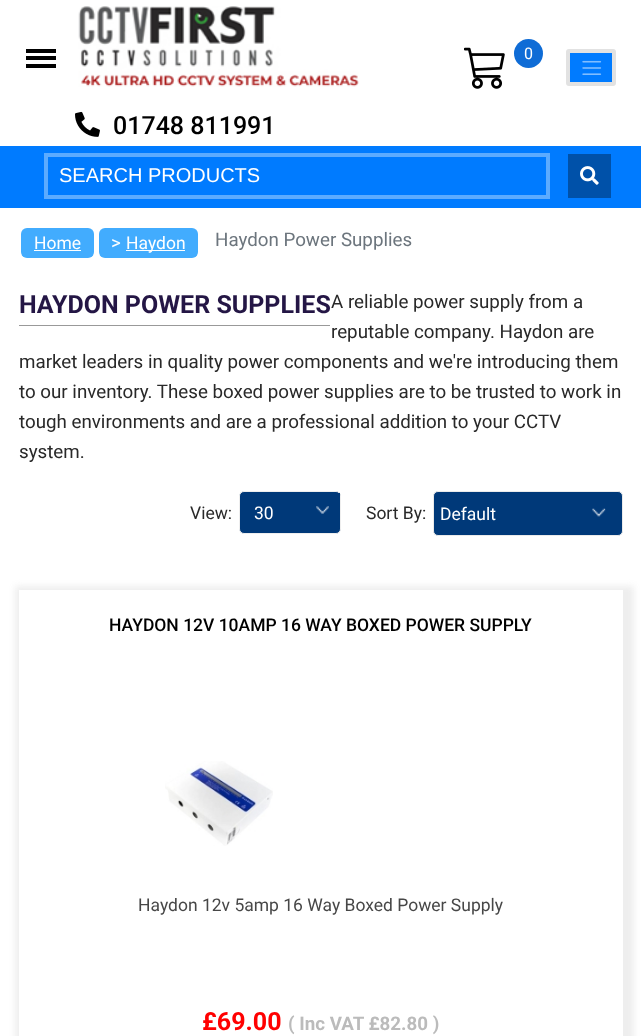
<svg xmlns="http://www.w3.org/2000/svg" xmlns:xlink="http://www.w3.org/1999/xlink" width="641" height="1036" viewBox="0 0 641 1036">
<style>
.cls-1{font:16px Roboto;fill:#ffffff}
.cls-2{font:500 25px Roboto;fill:#000000}
.cls-3{font:20px Liberation Sans;fill:#ffffff}
.cls-4{font:17.5px Roboto;fill:#ffffff}
.cls-5{font:18.75px Roboto;fill:#ffffff}
.cls-6{font:18.75px Roboto;fill:#6c757d}
.cls-7{font:18.75px Roboto;fill:#292929}
.cls-8{font:bold 25px Roboto;fill:#241645}
.cls-9{font:17.5px Roboto;fill:#292929}
.cls-10{font:500 17.5px Roboto;fill:#000000}
.cls-11{font:17.5px Roboto;fill:#474747}
.cls-12{font:bold 25px Roboto;fill:#ff0000}
.cls-13{font:bold 18.75px Roboto;fill:#bbbbbb}
</style>
<rect width="100%" height="100%" fill="#ffffff"/>
<rect fill="#000000" x="26" y="56" width="30" height="4"/>
<rect fill="#000000" x="26" y="49" width="30" height="4"/>
<rect fill="#000000" x="26" y="64" width="30" height="4"/>
<image xlink:href="image0.png" x="78" y="6" width="281" height="81"/>
<image xlink:href="image1.png" x="464" y="47" width="41" height="42"/>
<circle fill="#0f6cd6" cx="528.5" cy="53.5" r="14.5"/>
<image xlink:href="image2.png" x="75" y="111" width="25" height="26"/>
<rect fill="#007bff" stroke="#e2e2e2" stroke-width="4" x="568" y="51" width="46" height="33" rx="1"/>
<image xlink:href="image3.png" x="582" y="60" width="20" height="15"/>
<rect fill="#007bff" x="0" y="146" width="641" height="62"/>
<rect fill="none" stroke="#5cabff" stroke-width="4" x="46" y="155" width="502" height="42"/>
<rect fill="#0051a9" x="568" y="154" width="43" height="44"/>
<image xlink:href="image4.png" x="580" y="166" width="19" height="19"/>
<rect fill="#42acfe" x="21" y="228" width="73" height="30" rx="6"/>
<rect fill="#ffffff" x="34" y="250" width="47" height="1"/>
<rect fill="#42acfe" x="99" y="228" width="99" height="30" rx="6"/>
<rect fill="#ffffff" x="126" y="250" width="59" height="1"/>
<rect fill="#999999" x="19" y="325" width="311" height="1"/>
<rect fill="#003979" stroke="#eeeeee" x="239.5" y="491.5" width="101" height="42" rx="4.5"/>
<rect fill="#003979" x="338" y="493" width="2" height="3"/>
<image xlink:href="image5.png" x="316" y="506" width="13" height="8"/>
<rect fill="#003979" stroke="#eaeaea" x="433.5" y="491.5" width="189" height="44" rx="4.5"/>
<image xlink:href="image6.png" x="592" y="508" width="14" height="9"/>
<rect fill="#eeeeee" filter="blur(3px)" x="15" y="586" width="619" height="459"/>
<rect fill="#ffffff" x="19" y="590" width="604" height="446"/>
<image xlink:href="image7.png" x="165" y="761" width="108" height="85"/>
<text class="cls-1" x="524" y="59">0</text>
<text class="cls-2" x="113" y="134">01748 811991</text>
<text class="cls-3" x="59" y="182">SEARCH PRODUCTS</text>
<text class="cls-4" x="34" y="249">Home</text>
<text class="cls-5" x="111" y="249">&gt;</text>
<text class="cls-4" x="126" y="249">Haydon</text>
<text class="cls-6" x="215" y="246">Haydon Power Supplies</text>
<text class="cls-7"><tspan x="331" y="308">A reliable power supply from a</tspan><tspan x="331" y="338">reputable company. Haydon are</tspan></text>
<text class="cls-7"><tspan x="19" y="368">market leaders in quality power components and we're introducing them</tspan><tspan x="19" y="398">to our inventory. These boxed power supplies are to be trusted to work in</tspan><tspan x="19" y="428">tough environments and are a professional addition to your CCTV</tspan><tspan x="19" y="458">system.</tspan></text>
<text class="cls-8" x="19" y="313">HAYDON POWER SUPPLIES</text>
<text class="cls-9" x="190" y="519">View:</text>
<text class="cls-4" x="254" y="519">30</text>
<text class="cls-9" x="366" y="519">Sort By:</text>
<text class="cls-4" x="440" y="520">Default</text>
<text class="cls-10" x="109" y="631">HAYDON 12V 10AMP 16 WAY BOXED POWER SUPPLY</text>
<text class="cls-11" x="138" y="911">Haydon 12v 5amp 16 Way Boxed Power Supply</text>
<text class="cls-12" x="202" y="1030">£69.00</text>
<text class="cls-13" x="288" y="1030">( Inc VAT £82.80 )</text>
</svg>
